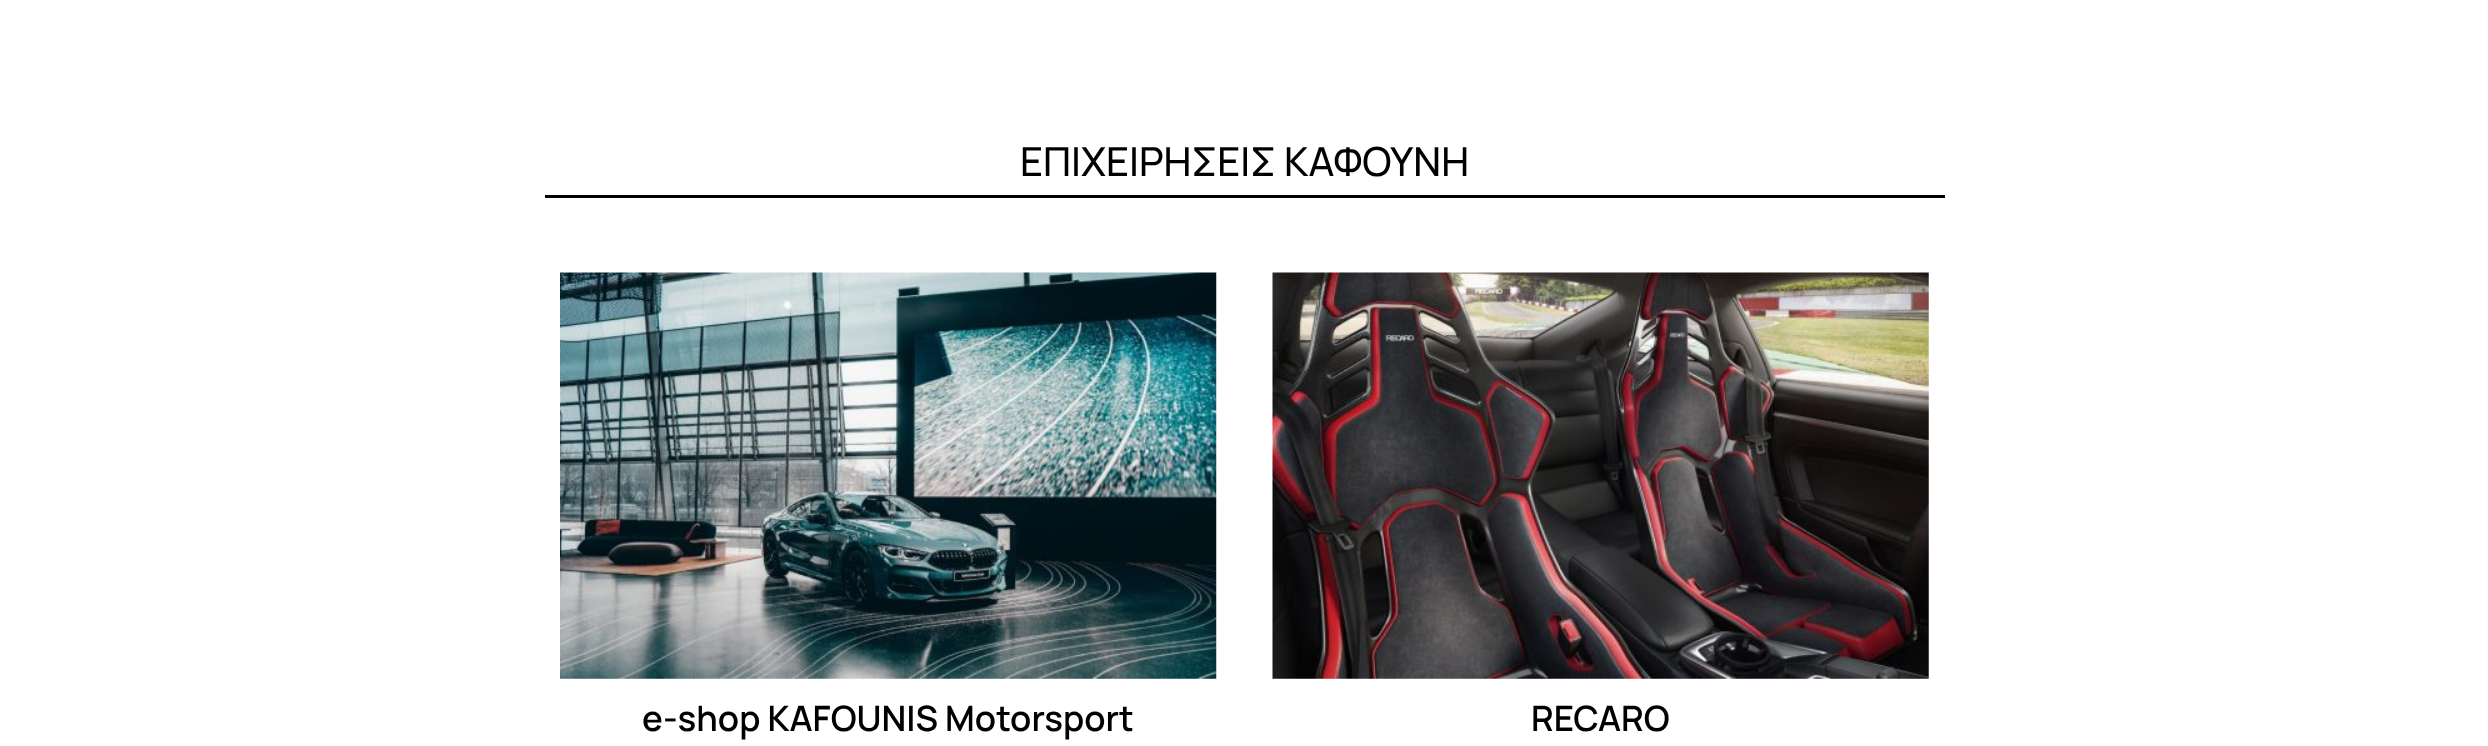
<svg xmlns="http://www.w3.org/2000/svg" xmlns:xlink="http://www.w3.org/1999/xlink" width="2488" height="746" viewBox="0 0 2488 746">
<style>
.cls-1{font:500 40px Manrope;fill:#000000}
.cls-2{font:600 35px Manrope;fill:#000000}
</style>
<rect width="100%" height="100%" fill="#ffffff"/>
<rect fill="#000000" x="545" y="195" width="1400" height="3"/>
<image xlink:href="image0.png" x="560" y="272" width="657" height="407"/>
<image xlink:href="image1.png" x="1272" y="272" width="657" height="407"/>
<text class="cls-1" x="1020" y="176">ΕΠΙΧΕΙΡΗΣΕΙΣ ΚΑΦΟΥΝΗ</text>
<text class="cls-2" x="642" y="731">e-shop KAFOUNIS Motorsport</text>
<text class="cls-2" x="1531" y="731">RECARO</text>
</svg>
